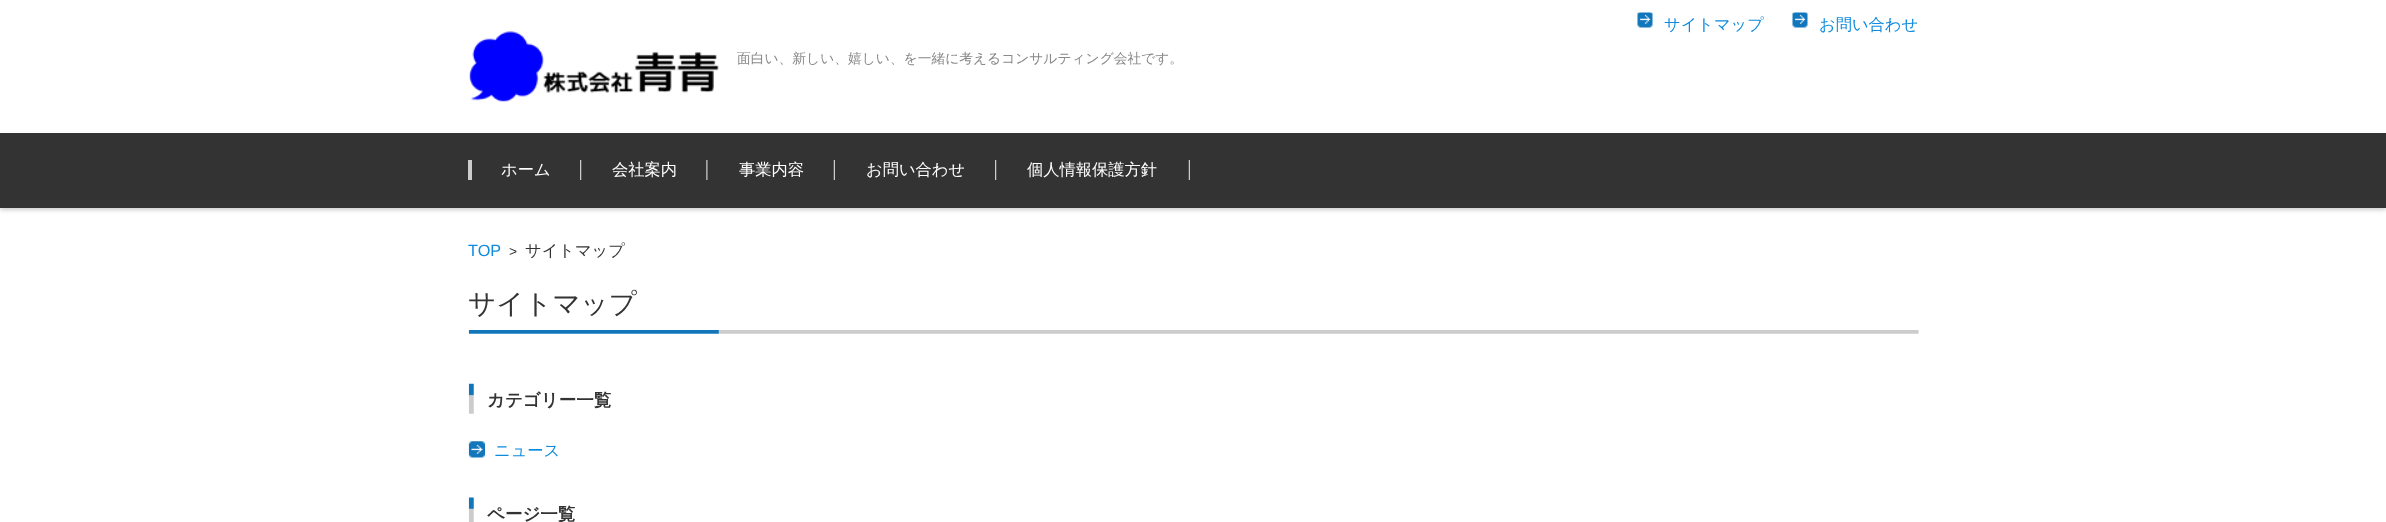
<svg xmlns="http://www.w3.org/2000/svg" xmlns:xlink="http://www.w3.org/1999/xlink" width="2386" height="522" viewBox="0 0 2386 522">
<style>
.cls-1{font:500 16.25px WenQuanYi Zen Hei;fill:#0e8bdd}
.cls-2{font:500 13.75px WenQuanYi Zen Hei;fill:#888888}
.cls-3{font:500 16.25px WenQuanYi Zen Hei;fill:#ffffff}
.cls-4{font:16.25px Liberation Sans;fill:#0e8bdd}
.cls-5{font:13.75px Liberation Sans;fill:#333333}
.cls-6{font:500 16.25px WenQuanYi Zen Hei;fill:#333333}
.cls-7{font:500 27.5px WenQuanYi Zen Hei;fill:#333333}
.cls-8{font:bold 17.5px WenQuanYi Zen Hei;fill:#333333}
</style>
<rect width="100%" height="100%" fill="#ffffff"/>
<rect fill="#000000" fill-opacity="0.2" filter="blur(2px)" x="0" y="135" width="2386" height="75"/>
<rect fill="#ffffff" x="0" y="132" width="2386" height="1"/>
<image xlink:href="image0.png" x="1637" y="12" width="16" height="16"/>
<image xlink:href="image1.png" x="1792" y="12" width="16" height="16"/>
<image xlink:href="image2.png" x="469" y="31" width="250" height="71"/>
<rect fill="#333333" x="0" y="133" width="2386" height="75"/>
<rect fill="#cccccc" x="468" y="160" width="4" height="20"/>
<image xlink:href="image3.png" x="580" y="160" width="2" height="20"/>
<image xlink:href="image4.png" x="706" y="160" width="2" height="20"/>
<image xlink:href="image5.png" x="833" y="160" width="2" height="20"/>
<image xlink:href="image6.png" x="995" y="160" width="195" height="20"/>
<image xlink:href="image7.png" x="468" y="330" width="1451" height="4"/>
<image xlink:href="image8.png" x="468" y="383" width="6" height="31"/>
<image xlink:href="image9.png" x="468" y="441" width="17" height="17"/>
<image xlink:href="image10.png" x="468" y="497" width="6" height="25"/>
<text class="cls-1" x="1664" y="30">サイトマップ</text>
<text class="cls-1" x="1819" y="30">お問い合わせ</text>
<text class="cls-2" x="737" y="63">面白い、新しい、嬉しい、を一緒に考えるコンサルティング会社です。</text>
<text class="cls-3" x="501" y="175">ホーム</text>
<text class="cls-3" x="612" y="175">会社案内</text>
<text class="cls-3" x="739" y="175">事業内容</text>
<text class="cls-3" x="866" y="175">お問い合わせ</text>
<text class="cls-3" x="1027" y="175">個人情報保護方針</text>
<text class="cls-4" x="468" y="256">TOP</text>
<text class="cls-5" x="509" y="256">&gt;</text>
<text class="cls-6" x="525" y="256">サイトマップ</text>
<text class="cls-7" x="468" y="313">サイトマップ</text>
<text class="cls-8" x="487" y="406">カテゴリー一覧</text>
<text class="cls-1" x="494" y="456">ニュース</text>
<text class="cls-8" x="487" y="520">ページ一覧</text>
</svg>
